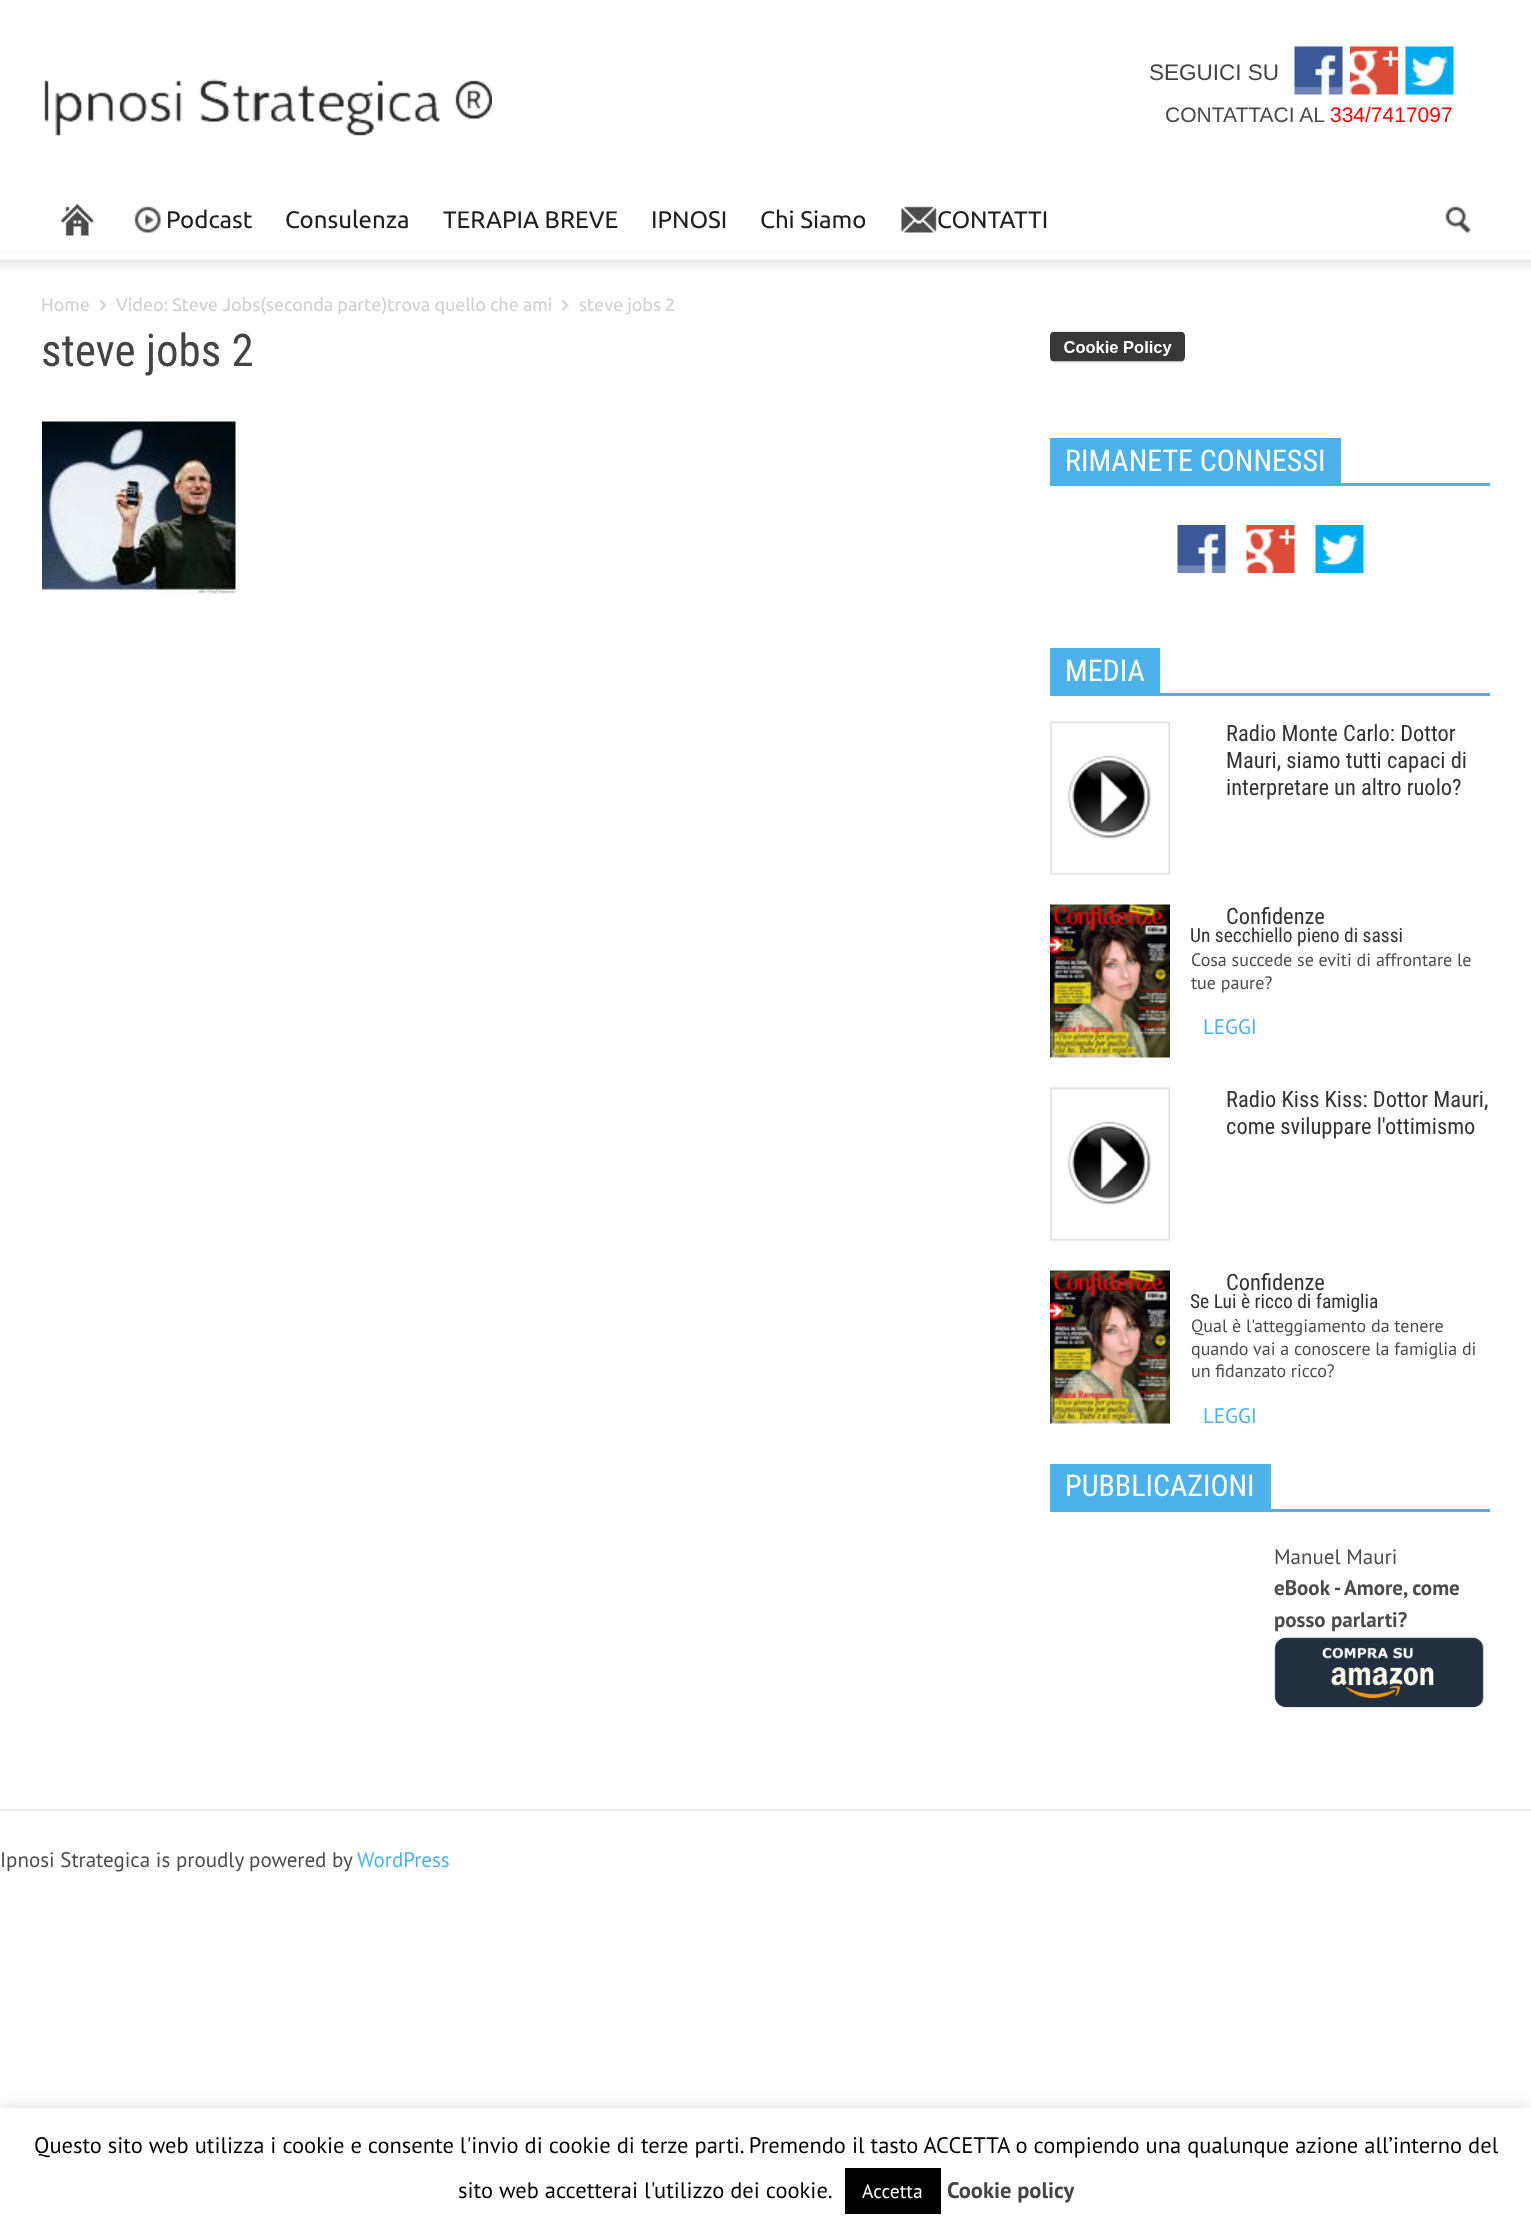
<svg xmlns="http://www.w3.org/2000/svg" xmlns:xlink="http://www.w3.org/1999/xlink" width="1531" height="2232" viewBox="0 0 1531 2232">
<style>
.cls-1{font:22.5px Liberation Sans;fill:#444444}
.cls-2{font:21px Liberation Sans;fill:#4b4b4b}
.cls-3{font:21px Liberation Sans;fill:#ff0000}
.cls-4{font:24px Ubuntu;fill:#202020}
.cls-5{font:18px Ubuntu;fill:#d0d0d0}
.cls-6{font:45px Roboto Condensed;fill:#444444}
.cls-7{font:30px Roboto Condensed;fill:#ffffff}
.cls-8{font:22.5px Roboto Condensed;fill:#333333}
.cls-9{font:19.5px Roboto Condensed;fill:#333333}
.cls-10{font:18px PT Sans;fill:#4b4b4b}
.cls-11{font:21px PT Sans;fill:#4db2ec}
.cls-12{font:21px PT Sans;fill:#4b4b4b}
.cls-13{font:bold 21px PT Sans;fill:#4b4b4b}
.cls-14{font:22.5px PT Sans;fill:#000000}
.cls-15{font:19.5px PT Sans;fill:#ffffff}
.cls-16{font:bold 22.5px PT Sans;fill:#444444}
</style>
<rect width="100%" height="100%" fill="#ffffff"/>
<image xlink:href="image0.png" x="44" y="79" width="448" height="57"/>
<image xlink:href="image1.png" x="1294" y="46" width="49" height="49"/>
<image xlink:href="image2.png" x="1350" y="46" width="48" height="49"/>
<image xlink:href="image3.png" x="1405" y="46" width="49" height="49"/>
<rect fill="#fafafa" x="0" y="251" width="1531" height="2"/>
<image xlink:href="image4.png" x="61" y="203" width="33" height="33"/>
<image xlink:href="image5.png" x="134" y="206" width="27" height="27"/>
<image xlink:href="image6.png" x="901" y="206" width="36" height="27"/>
<image xlink:href="image7.png" x="1445" y="206" width="26" height="27"/>
<image xlink:href="image8.png" x="0" y="259" width="1531" height="12"/>
<image xlink:href="image9.png" x="100" y="300" width="7" height="11"/>
<image xlink:href="image10.png" x="562" y="300" width="7" height="11"/>
<image xlink:href="image11.png" x="42" y="421" width="194" height="173"/>
<image xlink:href="image12.png" x="1050" y="331" width="135" height="32"/>
<rect fill="#4db2ec" x="1050" y="483" width="440" height="3"/>
<rect fill="#4db2ec" x="1050" y="438" width="291" height="45"/>
<image xlink:href="image13.png" x="1177" y="525" width="49" height="48"/>
<image xlink:href="image14.png" x="1246" y="525" width="49" height="48"/>
<image xlink:href="image15.png" x="1315" y="525" width="49" height="48"/>
<rect fill="#4db2ec" x="1050" y="693" width="440" height="3"/>
<rect fill="#4db2ec" x="1050" y="648" width="110" height="45"/>
<image xlink:href="image16.png" x="1050" y="721" width="120" height="154"/>
<image xlink:href="image17.png" x="1050" y="904" width="120" height="154"/>
<image xlink:href="image16.png" x="1050" y="1087" width="120" height="154"/>
<image xlink:href="image17.png" x="1050" y="1270" width="120" height="154"/>
<rect fill="#4db2ec" x="1050" y="1509" width="440" height="3"/>
<rect fill="#4db2ec" x="1050" y="1464" width="221" height="45"/>
<image xlink:href="image18.png" x="1274" y="1637" width="210" height="71"/>
<rect fill="#eeeeee" x="0" y="1809" width="1531" height="2"/>
<rect fill="#acabab" fill-opacity="0.3" filter="blur(7.5px)" x="0" y="2106" width="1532" height="125"/>
<rect fill="#ffffff" x="0" y="2108" width="1531" height="124"/>
<rect fill="#000000" x="845" y="2168" width="96" height="46"/>
<text class="cls-1" x="1149" y="80">SEGUICI SU</text>
<text class="cls-2" x="1165" y="122">CONTATTACI AL</text>
<text class="cls-3" x="1330" y="122">334/7417097</text>
<text class="cls-4" x="166" y="228">Podcast</text>
<text class="cls-4" x="285" y="228">Consulenza</text>
<text class="cls-4" x="443" y="228">TERAPIA BREVE</text>
<text class="cls-4" x="651" y="228">IPNOSI</text>
<text class="cls-4" x="760" y="228">Chi Siamo</text>
<text class="cls-4" x="937" y="228">CONTATTI</text>
<text class="cls-5" x="41" y="311">Home</text>
<text class="cls-5" x="116" y="311">Video: Steve Jobs(seconda parte)trova quello che ami</text>
<text class="cls-5" x="579" y="311">steve jobs 2</text>
<text class="cls-6" x="41" y="366">steve jobs 2</text>
<text class="cls-7" x="1065" y="471">RIMANETE CONNESSI</text>
<text class="cls-7" x="1065" y="681">MEDIA</text>
<text class="cls-8"><tspan x="1226" y="741">Radio Monte Carlo: Dottor</tspan><tspan x="1226" y="768">Mauri, siamo tutti capaci di</tspan><tspan x="1226" y="795">interpretare un altro ruolo?</tspan></text>
<text class="cls-8" x="1226" y="924">Confidenze</text>
<text class="cls-9" x="1190" y="942">Un secchiello pieno di sassi</text>
<text class="cls-10"><tspan x="1191" y="966">Cosa succede se eviti di affrontare le</tspan><tspan x="1191" y="989">tue paure?</tspan></text>
<text class="cls-11" x="1203" y="1034">LEGGI</text>
<text class="cls-8"><tspan x="1226" y="1107">Radio Kiss Kiss: Dottor Mauri,</tspan><tspan x="1226" y="1134">come sviluppare l'ottimismo</tspan></text>
<text class="cls-8" x="1226" y="1290">Confidenze</text>
<text class="cls-9" x="1190" y="1308">Se Lui è ricco di famiglia</text>
<text class="cls-10"><tspan x="1191" y="1332">Qual è l'atteggiamento da tenere</tspan><tspan x="1191" y="1355">quando vai a conoscere la famiglia di</tspan><tspan x="1191" y="1377">un fidanzato ricco?</tspan></text>
<text class="cls-11" x="1203" y="1423">LEGGI</text>
<text class="cls-7" x="1065" y="1496">PUBBLICAZIONI</text>
<text class="cls-12" x="1274" y="1564">Manuel Mauri</text>
<text class="cls-13"><tspan x="1274" y="1595">eBook - Amore, come</tspan><tspan x="1274" y="1627">posso parlarti?</tspan></text>
<text class="cls-12" x="0" y="1867">Ipnosi Strategica is proudly powered by</text>
<text class="cls-11" x="357" y="1867">WordPress</text>
<text class="cls-14" x="34" y="2153">Questo sito web utilizza i cookie e consente l'invio di cookie di terze parti. Premendo il tasto ACCETTA o compiendo una qualunque azione all’interno del</text>
<text class="cls-14" x="458" y="2198">sito web accetterai l'utilizzo dei cookie.</text>
<text class="cls-15" x="862" y="2198">Accetta</text>
<text class="cls-16" x="947" y="2198">Cookie policy</text>
</svg>
